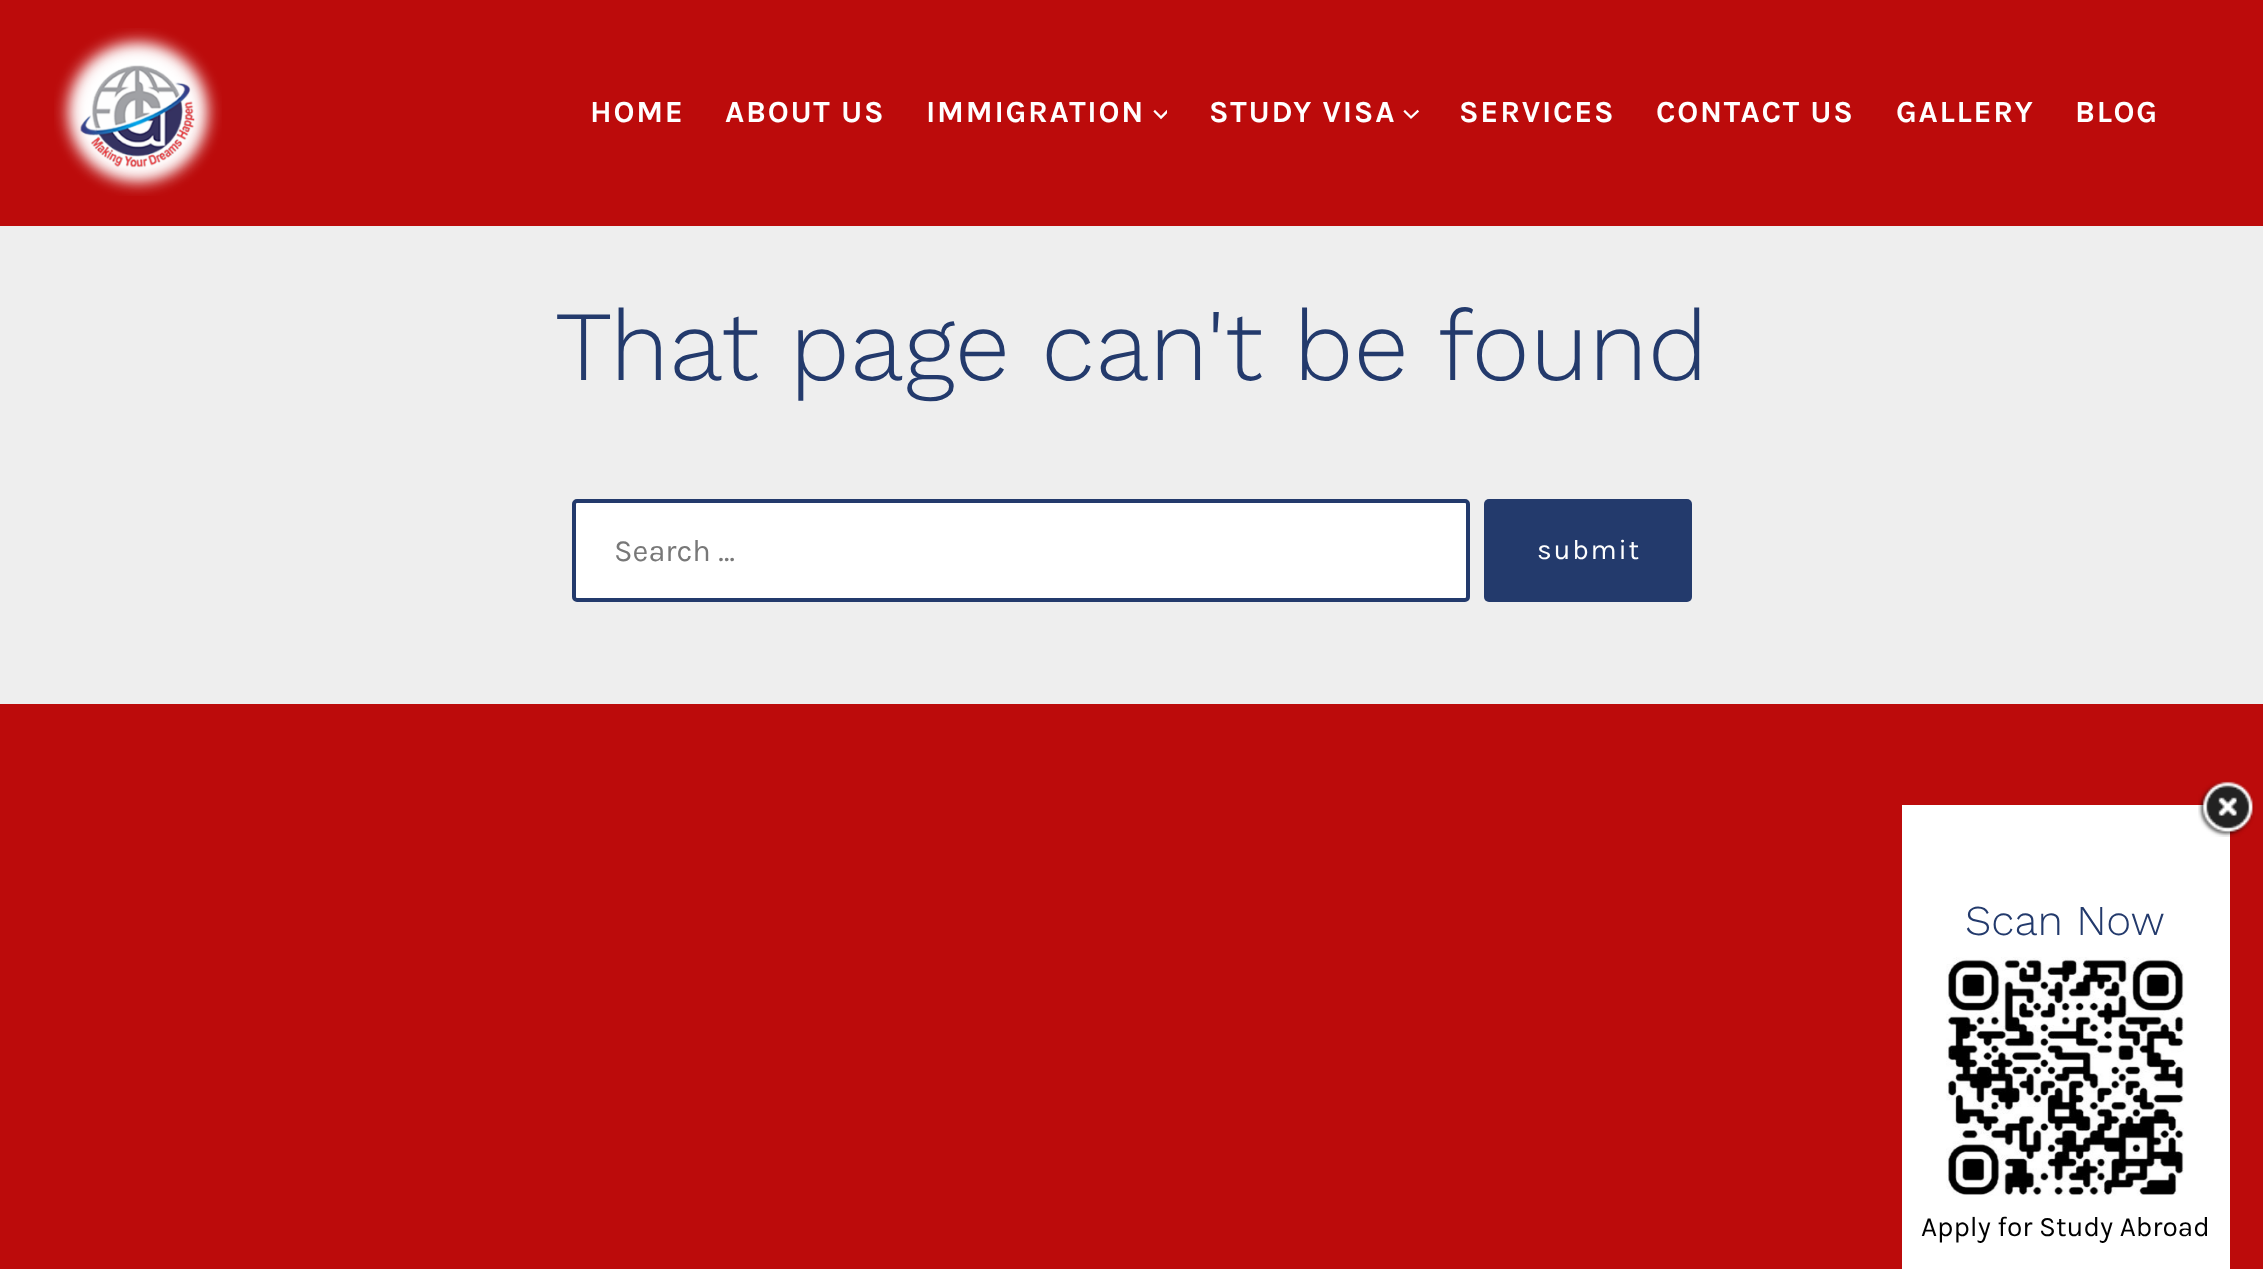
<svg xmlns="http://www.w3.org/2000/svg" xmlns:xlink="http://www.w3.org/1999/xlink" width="2263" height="1269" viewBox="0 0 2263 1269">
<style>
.cls-1{font:bold 30.75px Karla;letter-spacing:1.75px;fill:#ffffff}
.cls-2{font:300 99.3px Work Sans;fill:#233a6c}
.cls-3{font:30.75px Karla;fill:#787878}
.cls-4{font:28px Karla;letter-spacing:1.75px;fill:#ffffff}
.cls-5{font:300 42.5px Work Sans;fill:#233a6c}
.cls-6{font:28px Karla;fill:#000000}
</style>
<defs>
<clipPath id="clip1"><rect x="1153" y="107" width="14" height="16"/></clipPath>
</defs>
<rect width="100%" height="100%" fill="#bc0b0b"/>
<rect fill="#eeeeee" x="0" y="226" width="2263" height="478"/>
<image xlink:href="image0.png" x="54" y="28" width="168" height="168"/>
<g clip-path="url(#clip1)">
<path fill="none" stroke="#ffffff" stroke-width="2.3" stroke-linecap="square" d="M1155 111.5L1161 117.5L1167 111.5"/>
</g>
<path fill="none" stroke="#ffffff" stroke-width="2.3" stroke-linecap="square" d="M1405 111.5L1411 117.5L1417.5 111.5"/>
<rect fill="#ffffff" stroke="#233a6c" stroke-width="4" x="574" y="501" width="894" height="99" rx="3"/>
<rect fill="#233a6c" x="1484" y="499" width="208" height="103" rx="5"/>
<rect fill="#ffffff" x="1902" y="805" width="328" height="464"/>
<image xlink:href="image1.png" x="2198" y="780" width="57" height="57"/>
<image xlink:href="image2.png" x="1946" y="957" width="238" height="239"/>
<text class="cls-1" x="590" y="122">HOME</text>
<text class="cls-1" x="725" y="122">ABOUT US</text>
<text class="cls-1" x="926" y="122">IMMIGRATION</text>
<text class="cls-1" x="1209" y="122">STUDY VISA</text>
<text class="cls-1" x="1459" y="122">SERVICES</text>
<text class="cls-1" x="1656" y="122">CONTACT US</text>
<text class="cls-1" x="1896" y="122">GALLERY</text>
<text class="cls-1" x="2075" y="122">BLOG</text>
<text class="cls-2" x="555" y="380">That page can't be found</text>
<text class="cls-3" x="614" y="561">Search …</text>
<text class="cls-4" x="1537" y="559">submit</text>
<text class="cls-5" x="1965" y="935">Scan Now</text>
<text class="cls-6" x="1921" y="1236">Apply for Study Abroad</text>
</svg>
